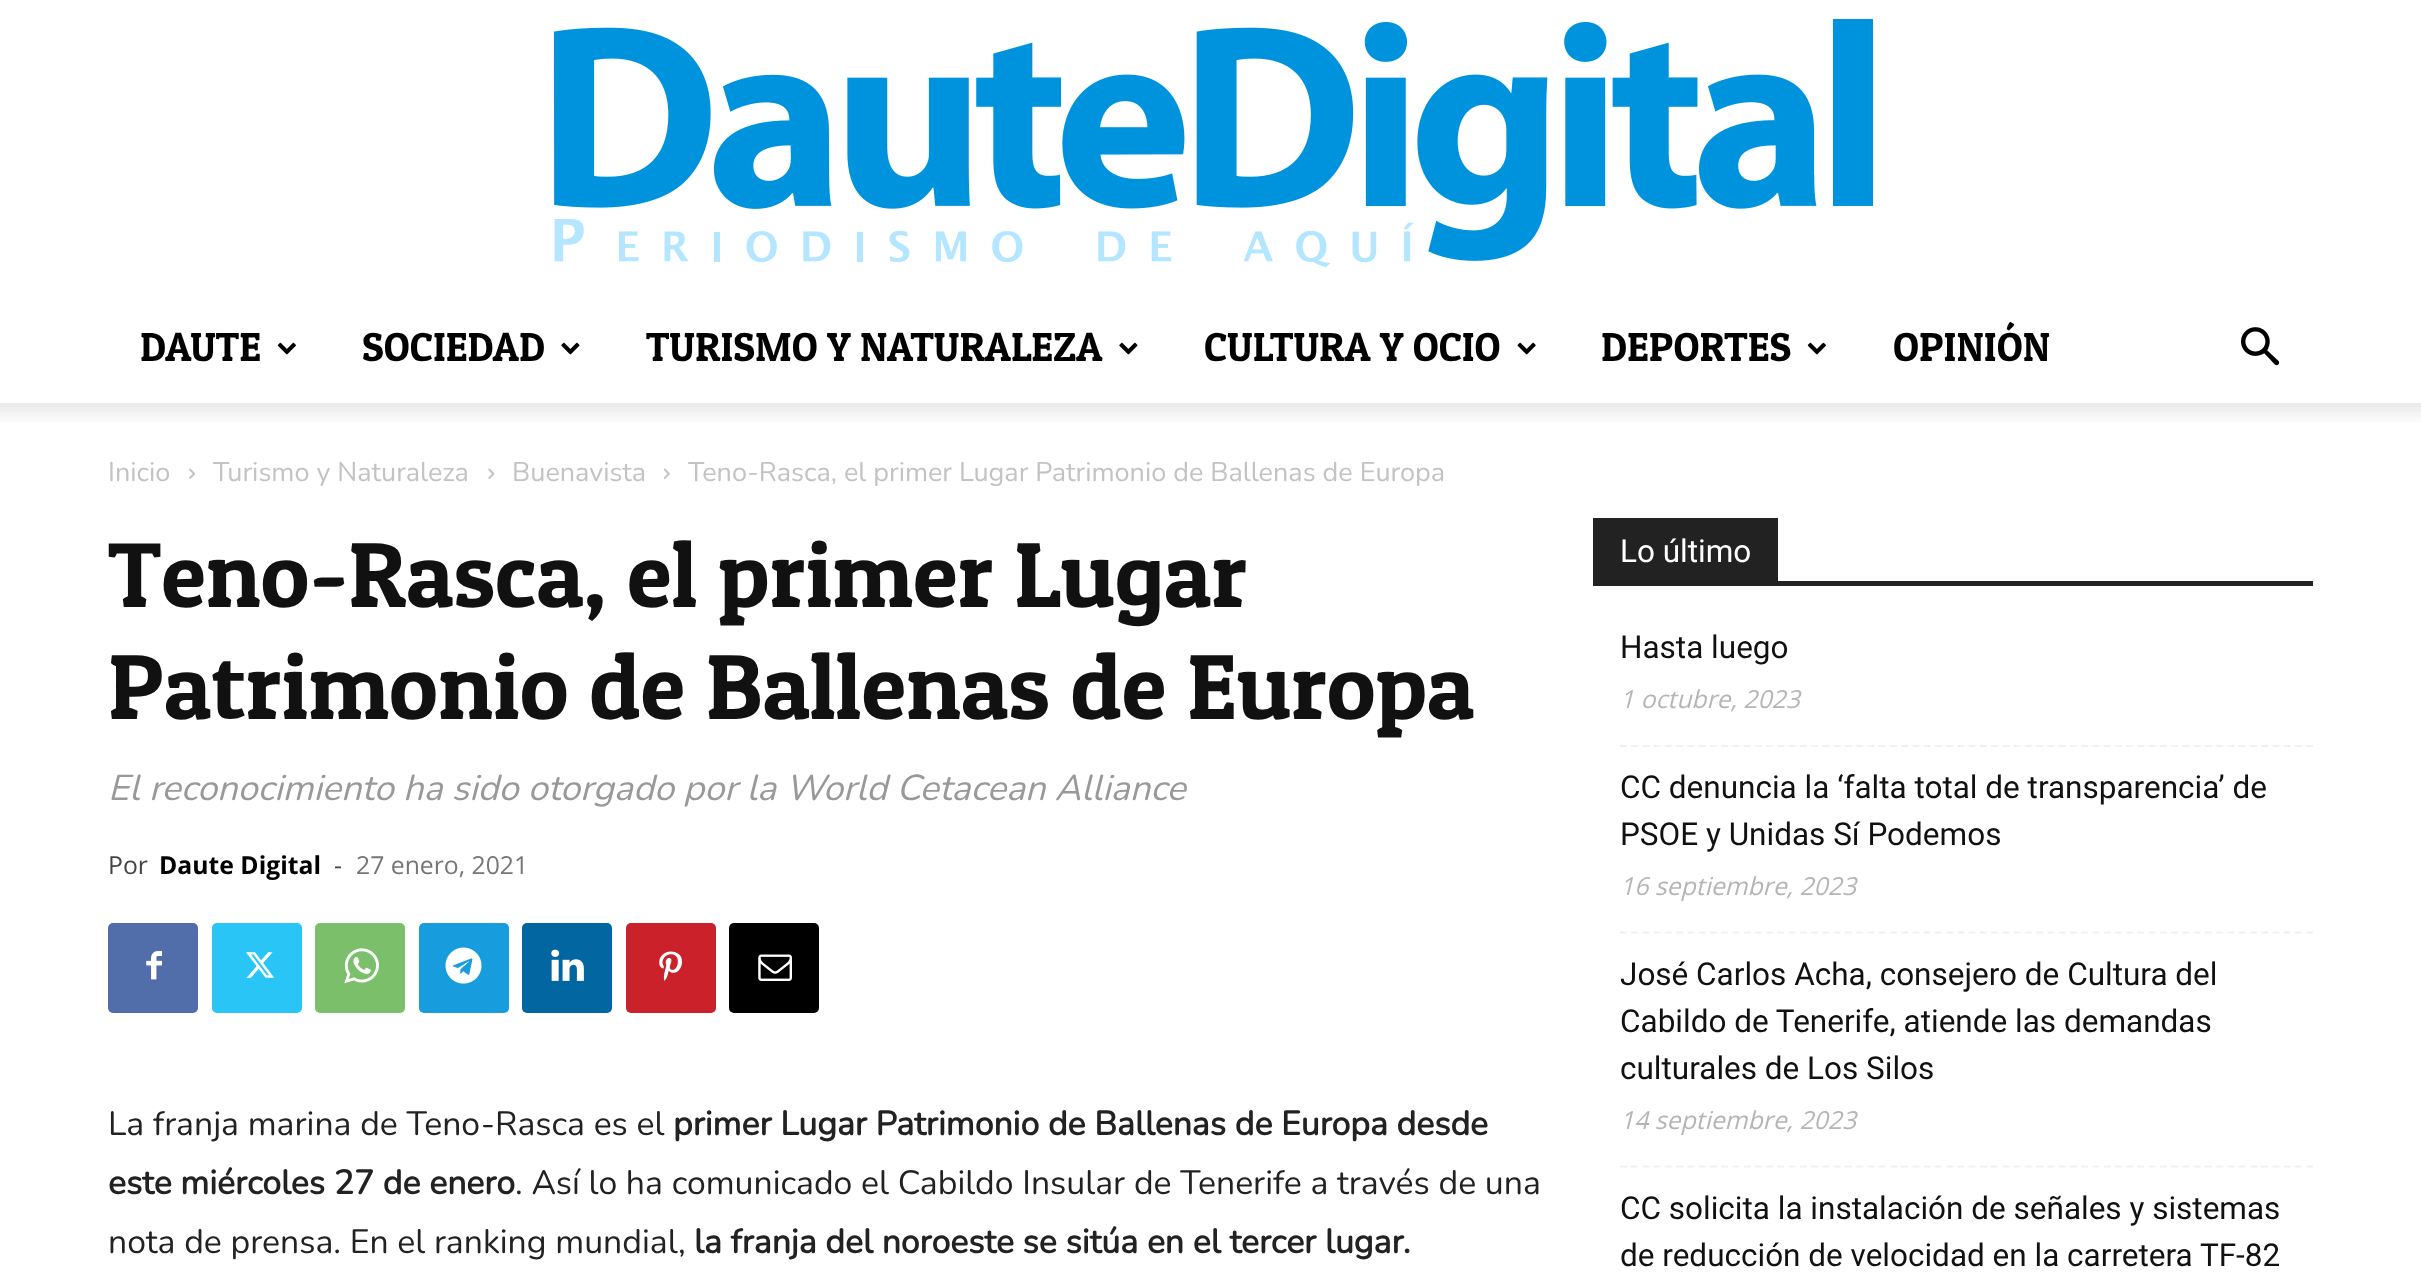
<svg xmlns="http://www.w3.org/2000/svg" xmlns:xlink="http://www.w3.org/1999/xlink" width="2421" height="1283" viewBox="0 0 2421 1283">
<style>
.cls-1{font:40.5px Patua One;fill:#000000}
.cls-2{font:200 27px Nunito;fill:#c3c3c3}
.cls-3{font:92.25px Patua One;fill:#111111}
.cls-4{font:italic 200 36px Nunito;fill:#999999}
.cls-5{font:24.75px Open Sans;fill:#444444}
.cls-6{font:bold 24.75px Open Sans;fill:#000000}
.cls-7{font:24.75px Open Sans;fill:#767676}
.cls-8{font:200 33.75px Nunito;fill:#222222}
.cls-9{font:bold 33.75px Nunito;fill:#222222}
.cls-10{font:31.5px Roboto;fill:#ffffff}
.cls-11{font:31.5px Roboto;fill:#111111}
.cls-12{font:italic 24.75px Open Sans;fill:#b5b5b5}
</style>
<rect width="100%" height="100%" fill="#ffffff"/>
<image xlink:href="image0.png" x="553" y="19" width="1320" height="249"/>
<image xlink:href="image1.png" x="277" y="342" width="19" height="13"/>
<image xlink:href="image2.png" x="561" y="342" width="19" height="13"/>
<image xlink:href="image2.png" x="1119" y="342" width="19" height="13"/>
<image xlink:href="image3.png" x="1517" y="342" width="19" height="13"/>
<image xlink:href="image1.png" x="1807" y="342" width="19" height="13"/>
<image xlink:href="image4.png" x="2241" y="327" width="39" height="39"/>
<image xlink:href="image5.png" x="0" y="403" width="2421" height="19"/>
<image xlink:href="image6.png" x="189" y="468" width="6" height="11"/>
<image xlink:href="image7.png" x="488" y="468" width="7" height="11"/>
<image xlink:href="image8.png" x="663" y="468" width="7" height="11"/>
<rect fill="#516eab" x="108" y="923" width="90" height="90" rx="5"/>
<image xlink:href="image9.png" x="146" y="951" width="16" height="29"/>
<rect fill="#29c5f6" x="212" y="923" width="90" height="90" rx="5"/>
<image xlink:href="image10.png" x="246" y="952" width="29" height="26"/>
<rect fill="#7bbf6a" x="315" y="923" width="90" height="90" rx="5"/>
<image xlink:href="image11.png" x="344" y="948" width="35" height="36"/>
<rect fill="#179cde" x="419" y="923" width="90" height="90" rx="5"/>
<image xlink:href="image12.png" x="445" y="947" width="37" height="37"/>
<rect fill="#0266a0" x="522" y="923" width="90" height="90" rx="5"/>
<image xlink:href="image13.png" x="551" y="949" width="33" height="32"/>
<rect fill="#ca212a" x="626" y="923" width="90" height="90" rx="5"/>
<image xlink:href="image14.png" x="659" y="951" width="23" height="30"/>
<rect fill="#000000" x="729" y="923" width="90" height="90" rx="5"/>
<image xlink:href="image15.png" x="758" y="954" width="34" height="27"/>
<rect fill="#222222" x="1593" y="581" width="720" height="5"/>
<rect fill="#222222" x="1593" y="518" width="185" height="63"/>
<path fill="none" stroke="#f1f1f1" stroke-width="2.2" stroke-dasharray="6.75 4.5" d="M1620 746H2313"/>
<path fill="none" stroke="#f1f1f1" stroke-width="2.2" stroke-dasharray="6.75 4.5" d="M1620 932.5H2313"/>
<path fill="none" stroke="#f1f1f1" stroke-width="2.2" stroke-dasharray="6.75 4.5" d="M1620 1166.5H2313"/>
<text class="cls-1" x="140" y="361">DAUTE</text>
<text class="cls-1" x="362" y="361">SOCIEDAD</text>
<text class="cls-1" x="646" y="361">TURISMO Y NATURALEZA</text>
<text class="cls-1" x="1204" y="361">CULTURA Y OCIO</text>
<text class="cls-1" x="1601" y="361">DEPORTES</text>
<text class="cls-1" x="1893" y="361">OPINIÓN</text>
<text class="cls-2" x="108" y="481">Inicio</text>
<text class="cls-2" x="213" y="481">Turismo y Naturaleza</text>
<text class="cls-2" x="512" y="481">Buenavista</text>
<text class="cls-2" x="688" y="481">Teno-Rasca, el primer Lugar Patrimonio de Ballenas de Europa</text>
<text class="cls-3"><tspan x="108" y="607">Teno-Rasca, el primer Lugar</tspan><tspan x="108" y="719">Patrimonio de Ballenas de Europa</tspan></text>
<text class="cls-4" x="108" y="800">El reconocimiento ha sido otorgado por la World Cetacean Alliance</text>
<text class="cls-5" x="108" y="874">Por</text>
<text class="cls-6" x="159" y="874">Daute Digital</text>
<text class="cls-5" x="334" y="874">-</text>
<text class="cls-7" x="356" y="874">27 enero, 2021</text>
<text class="cls-8" x="108" y="1135">La franja marina de Teno-Rasca es el</text>
<text class="cls-9" x="673" y="1135">primer Lugar Patrimonio de Ballenas de Europa desde</text>
<text class="cls-9" x="108" y="1194">este miércoles 27 de enero</text>
<text class="cls-8" x="515" y="1194">. Así lo ha comunicado el Cabildo Insular de Tenerife a través de una</text>
<text class="cls-8" x="108" y="1253">nota de prensa. En el ranking mundial,</text>
<text class="cls-9" x="694" y="1253">la franja del noroeste se sitúa en el tercer lugar.</text>
<text class="cls-10" x="1620" y="562">Lo último</text>
<text class="cls-11" x="1620" y="658">Hasta luego</text>
<text class="cls-12" x="1620" y="708">1 octubre, 2023</text>
<text class="cls-11"><tspan x="1620" y="798">CC denuncia la ‘falta total de transparencia’ de</tspan><tspan x="1620" y="845">PSOE y Unidas Sí Podemos</tspan></text>
<text class="cls-12" x="1620" y="895">16 septiembre, 2023</text>
<text class="cls-11"><tspan x="1620" y="985">José Carlos Acha, consejero de Cultura del</tspan><tspan x="1620" y="1032">Cabildo de Tenerife, atiende las demandas</tspan><tspan x="1620" y="1079">culturales de Los Silos</tspan></text>
<text class="cls-12" x="1620" y="1129">14 septiembre, 2023</text>
<text class="cls-11"><tspan x="1620" y="1219">CC solicita la instalación de señales y sistemas</tspan><tspan x="1620" y="1266">de reducción de velocidad en la carretera TF-82</tspan></text>
</svg>
